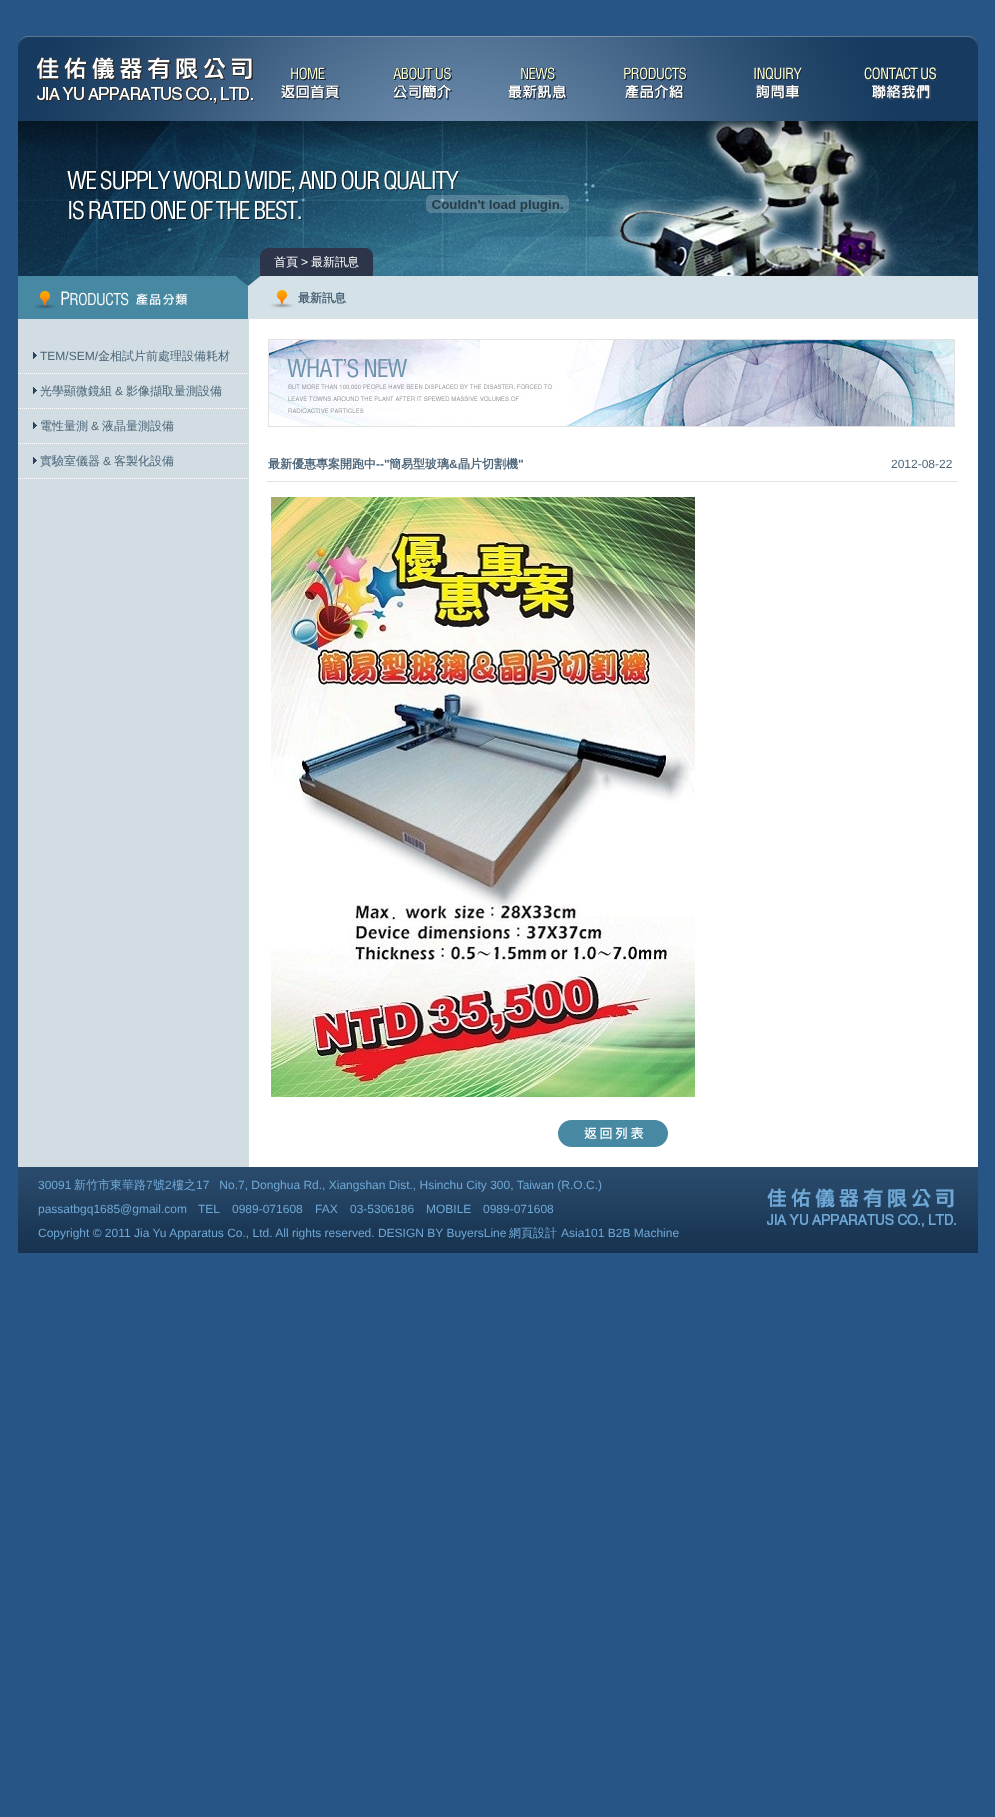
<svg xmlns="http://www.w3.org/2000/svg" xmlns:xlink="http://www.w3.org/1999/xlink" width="995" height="1817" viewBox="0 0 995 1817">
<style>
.cls-1{font:12px Liberation Sans;fill:#4c6579}
.cls-2{font:500 12px WenQuanYi Zen Hei;fill:#4c6579}
.cls-3{font:500 12px WenQuanYi Zen Hei;fill:#ffffff}
.cls-4{font:12px Liberation Sans;fill:#ffffff}
.cls-5{font:bold 12px WenQuanYi Zen Hei;fill:#4c6579}
.cls-6{font:bold 12px Liberation Sans;fill:#4c6579}
.cls-7{font:12px Liberation Sans;fill:#6fa8d6}
.cls-8{font:500 12px WenQuanYi Zen Hei;fill:#6fa8d6}
</style>
<rect width="100%" height="100%" fill="#275585"/>
<image xlink:href="image0.png" x="18" y="36" width="960" height="85"/>
<image xlink:href="image1.png" x="37" y="57" width="217" height="47"/>
<image xlink:href="image2.png" x="281" y="67" width="59" height="33"/>
<image xlink:href="image3.png" x="393" y="67" width="59" height="33"/>
<image xlink:href="image4.png" x="508" y="67" width="59" height="33"/>
<image xlink:href="image5.png" x="624" y="67" width="63" height="33"/>
<image xlink:href="image6.png" x="754" y="67" width="49" height="33"/>
<image xlink:href="image7.png" x="864" y="67" width="73" height="33"/>
<rect fill="#ffffff" x="249" y="319" width="729" height="848"/>
<rect fill="#d1dde2" x="18" y="319" width="231" height="848"/>
<image xlink:href="image8.png" x="18" y="121" width="960" height="165"/>
<image xlink:href="image9.png" x="426" y="195" width="143" height="18"/>
<image xlink:href="image10.png" x="18" y="286" width="230" height="33"/>
<image xlink:href="image11.png" x="33" y="352" width="4" height="7"/>
<path fill="none" stroke="#ffffff" stroke-dasharray="1 1" d="M18 373.5H248"/>
<image xlink:href="image11.png" x="33" y="387" width="4" height="7"/>
<path fill="none" stroke="#ffffff" stroke-dasharray="1 1" d="M18 408.5H248"/>
<image xlink:href="image11.png" x="33" y="422" width="4" height="7"/>
<path fill="none" stroke="#ffffff" stroke-dasharray="1 1" d="M18 443.5H248"/>
<image xlink:href="image11.png" x="33" y="457" width="4" height="7"/>
<path fill="none" stroke="#ffffff" stroke-dasharray="1 1" d="M18 478.5H248"/>
<image xlink:href="image12.png" x="260" y="248" width="14" height="28"/>
<rect fill="#2c354a" x="274" y="248" width="85" height="28"/>
<image xlink:href="image13.png" x="359" y="248" width="14" height="28"/>
<image xlink:href="image14.png" x="248" y="286" width="730" height="33"/>
<image xlink:href="image15.png" x="268" y="339" width="687" height="88"/>
<rect fill="#e2e2e2" x="267" y="481" width="691" height="1"/>
<image xlink:href="image16.png" x="271" y="497" width="424" height="600"/>
<image xlink:href="image17.png" x="558" y="1120" width="110" height="27"/>
<image xlink:href="image18.png" x="18" y="1167" width="960" height="86"/>
<image xlink:href="image19.png" x="767" y="1188" width="189" height="39"/>
<text class="cls-1" x="40" y="360">TEM/SEM/</text>
<text class="cls-2" x="98" y="360">金相試片前處理設備耗材</text>
<text class="cls-2" x="40" y="395">光學顯微鏡組</text>
<text class="cls-1" x="115" y="395">&amp;</text>
<text class="cls-2" x="126" y="395">影像擷取量測設備</text>
<text class="cls-2" x="40" y="430">電性量測</text>
<text class="cls-1" x="91" y="430">&amp;</text>
<text class="cls-2" x="102" y="430">液晶量測設備</text>
<text class="cls-2" x="40" y="465">實驗室儀器</text>
<text class="cls-1" x="103" y="465">&amp;</text>
<text class="cls-2" x="114" y="465">客製化設備</text>
<text class="cls-3" x="274" y="266">首頁</text>
<text class="cls-4" x="301" y="266">&gt;</text>
<text class="cls-3" x="311" y="266">最新訊息</text>
<text class="cls-5" x="298" y="302">最新訊息</text>
<text class="cls-5" x="268" y="468">最新優惠專案開跑中</text>
<text class="cls-6" x="376" y="468">--"</text>
<text class="cls-5" x="389" y="468">簡易型玻璃</text>
<text class="cls-6" x="449" y="468">&amp;</text>
<text class="cls-5" x="458" y="468">晶片切割機</text>
<text class="cls-6" x="518" y="468">"</text>
<text class="cls-1" x="891" y="468">2012-08-22</text>
<text class="cls-7" x="38" y="1189">30091</text>
<text class="cls-8" x="74" y="1189">新竹市東華路</text>
<text class="cls-7" x="146" y="1189">7</text>
<text class="cls-8" x="153" y="1189">號</text>
<text class="cls-7" x="165" y="1189">2</text>
<text class="cls-8" x="172" y="1189">樓之</text>
<text class="cls-7" xml:space="preserve" x="196" y="1189">17   No.7, Donghua Rd., Xiangshan Dist., Hsinchu City 300, Taiwan (R.O.C.)</text>
<text class="cls-7" x="38" y="1213">passatbgq1685@gmail.com</text>
<text class="cls-7" x="198" y="1213">TEL</text>
<text class="cls-7" x="232" y="1213">0989-071608</text>
<text class="cls-7" x="315" y="1213">FAX</text>
<text class="cls-7" x="350" y="1213">03-5306186</text>
<text class="cls-7" x="426" y="1213">MOBILE</text>
<text class="cls-7" x="483" y="1213">0989-071608</text>
<text class="cls-7" x="38" y="1237">Copyright © 2011 Jia Yu Apparatus Co., Ltd. All rights reserved. DESIGN BY BuyersLine</text>
<text class="cls-8" x="509" y="1237">網頁設計</text>
<text class="cls-7" x="561" y="1237">Asia101 B2B Machine</text>
</svg>
